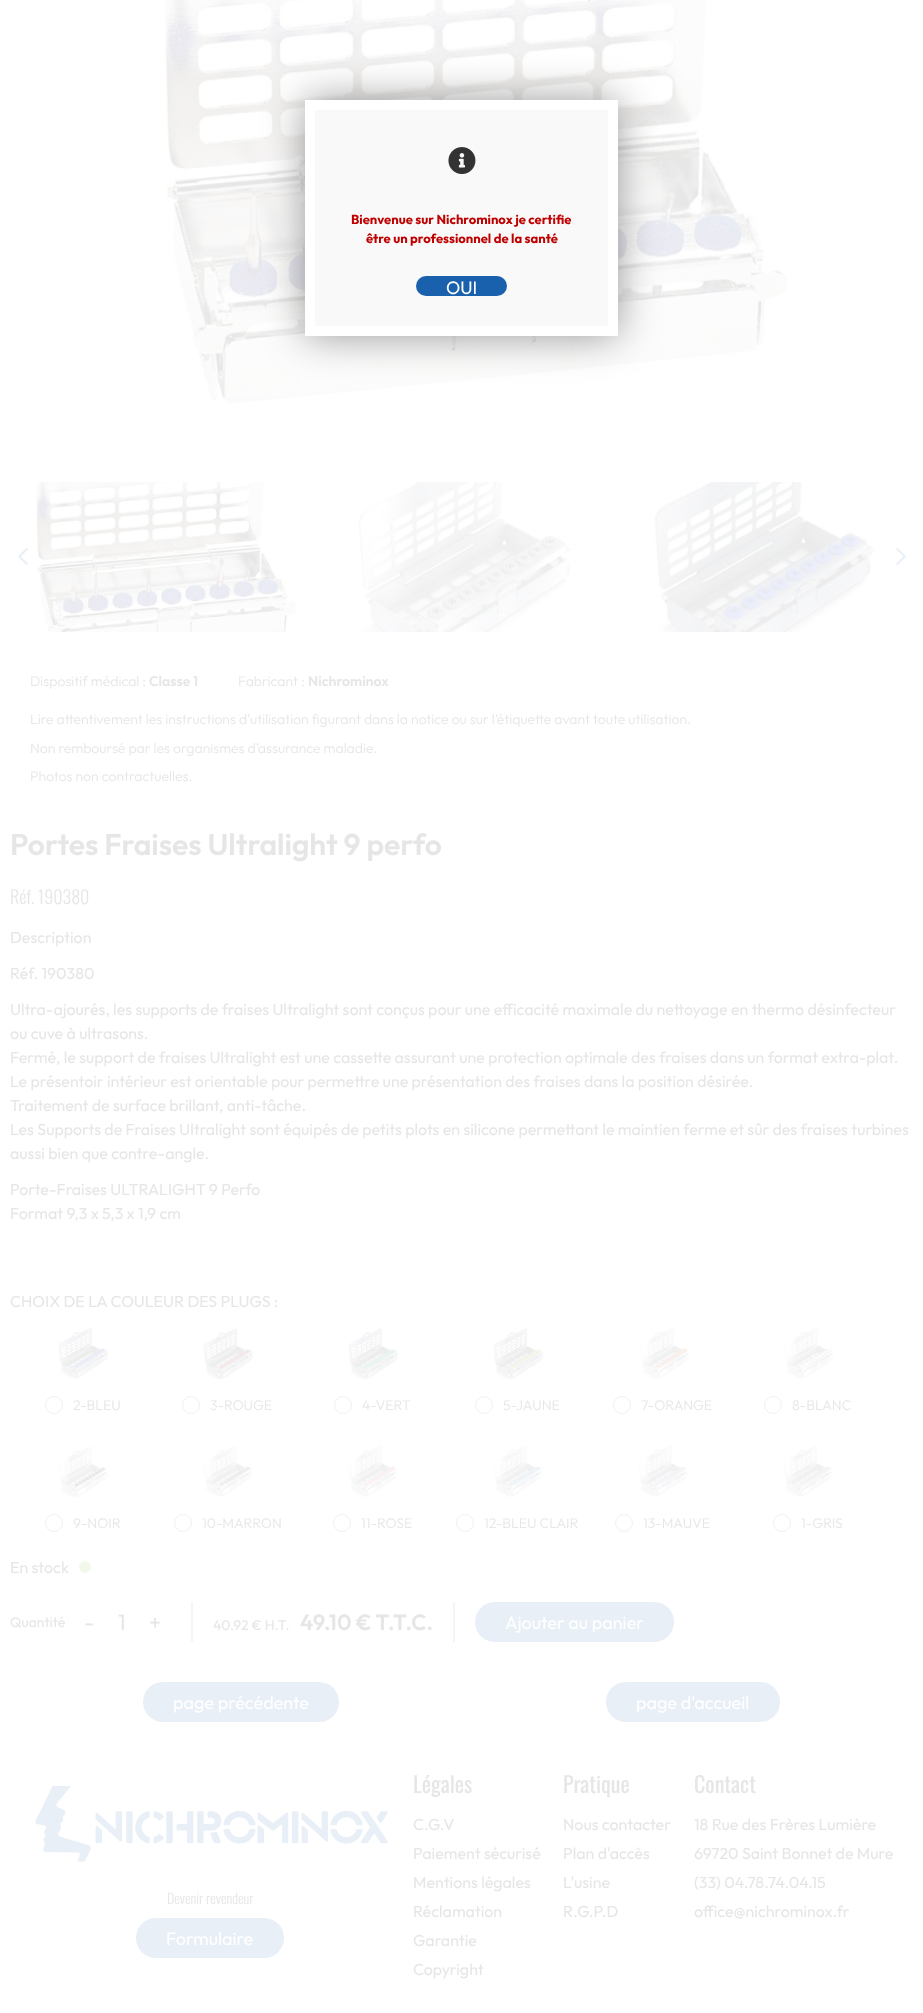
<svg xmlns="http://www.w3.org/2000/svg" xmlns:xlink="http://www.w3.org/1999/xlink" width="923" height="2013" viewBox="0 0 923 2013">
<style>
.cls-1{font:bold 13px Outfit;fill:#bf0000}
.cls-2{font:18px Outfit;fill:#ffffff}
.cls-3{font:300 14px Outfit;fill:#e6e6e6}
.cls-4{font:600 14px Outfit;fill:#e6e6e6}
.cls-5{font:600 30px Outfit;fill:#e6e6e6}
.cls-6{font:300 18px Oswald;fill:#e6e6e6}
.cls-7{font:16px Outfit;fill:#e6e6e6}
.cls-8{font:14px Outfit;fill:#e6e6e6}
.cls-9{font:22px Outfit;fill:#e6e6e6}
.cls-10{font:600 22px Outfit;fill:#e6e6e6}
.cls-11{font:300 14px Oswald;fill:#e6e6e6}
.cls-12{font:22px Oswald;fill:#e6e6e6}
</style>
<rect width="100%" height="100%" fill="#ffffff"/>
<image xlink:href="image1.png" x="163" y="0" width="628" height="406"/>
<rect fill="#000000" fill-opacity="0.4" filter="blur(20px)" x="305" y="100" width="313" height="236"/>
<rect fill="#f9f9f9" stroke="#ffffff" stroke-width="10" x="310" y="105" width="303" height="226"/>
<image xlink:href="image0.png" x="448" y="147" width="28" height="27"/>
<rect fill="#1961ac" x="416" y="276" width="91" height="20" rx="10"/>
<image xlink:href="image2.png" x="33" y="482" width="266" height="150"/>
<image xlink:href="image3.png" x="357" y="482" width="215" height="150"/>
<image xlink:href="image4.png" x="651" y="482" width="228" height="150"/>
<image xlink:href="image5.png" x="18" y="547" width="10" height="19"/>
<image xlink:href="image6.png" x="896" y="547" width="10" height="19"/>
<image xlink:href="image7.png" x="55" y="1327" width="55" height="53"/>
<circle fill="none" stroke="#f1f1f1" cx="54" cy="1405" r="8.5"/>
<image xlink:href="image8.png" x="200" y="1326" width="57" height="55"/>
<circle fill="none" stroke="#f1f1f1" cx="191" cy="1405" r="8.5"/>
<image xlink:href="image9.png" x="345" y="1326" width="57" height="55"/>
<circle fill="none" stroke="#f1f1f1" cx="343" cy="1405" r="8.5"/>
<image xlink:href="image10.png" x="490" y="1326" width="57" height="55"/>
<circle fill="none" stroke="#f1f1f1" cx="484" cy="1405" r="8.5"/>
<image xlink:href="image11.png" x="640" y="1326" width="52" height="54"/>
<circle fill="none" stroke="#f1f1f1" cx="622" cy="1405" r="8.5"/>
<image xlink:href="image12.png" x="784" y="1326" width="53" height="54"/>
<circle fill="none" stroke="#f1f1f1" cx="773" cy="1405" r="8.5"/>
<image xlink:href="image13.png" x="57" y="1445" width="55" height="53"/>
<circle fill="none" stroke="#f1f1f1" cx="54" cy="1523" r="8.5"/>
<image xlink:href="image14.png" x="200" y="1444" width="54" height="54"/>
<circle fill="none" stroke="#f1f1f1" cx="183" cy="1523" r="8.5"/>
<image xlink:href="image15.png" x="345" y="1444" width="54" height="54"/>
<circle fill="none" stroke="#f1f1f1" cx="342" cy="1523" r="8.5"/>
<image xlink:href="image16.png" x="490" y="1444" width="54" height="53"/>
<circle fill="none" stroke="#f1f1f1" cx="465" cy="1523" r="8.5"/>
<image xlink:href="image17.png" x="635" y="1444" width="54" height="54"/>
<circle fill="none" stroke="#f1f1f1" cx="624" cy="1523" r="8.5"/>
<image xlink:href="image18.png" x="780" y="1444" width="54" height="54"/>
<circle fill="none" stroke="#f1f1f1" cx="782" cy="1523" r="8.5"/>
<circle fill="#f3f9ea" cx="85" cy="1567" r="6"/>
<rect fill="#f5f5f5" x="191" y="1602" width="2" height="40"/>
<rect fill="#f5f5f5" x="453" y="1602" width="2" height="40"/>
<rect fill="#e8eff7" x="475" y="1602" width="199" height="40" rx="20"/>
<rect fill="#e8eff7" x="143" y="1682" width="196" height="40" rx="20"/>
<rect fill="#e8eff7" x="606" y="1682" width="174" height="40" rx="20"/>
<image xlink:href="image19.png" x="35" y="1786" width="353" height="76"/>
<rect fill="#e8eff7" x="136" y="1918" width="148" height="40" rx="20"/>
<text class="cls-1" x="351" y="224">Bienvenue sur Nichrominox je certifie</text>
<text class="cls-1" x="366" y="243">être un professionnel de la santé</text>
<text class="cls-2" x="446" y="294">OUI</text>
<text class="cls-3" x="30" y="686">Dispositif médical :</text>
<text class="cls-4" x="149" y="686">Classe 1</text>
<text class="cls-3" x="238" y="686">Fabricant :</text>
<text class="cls-4" x="308" y="686">Nichrominox</text>
<text class="cls-3" x="30" y="724">Lire attentivement les instructions d’utilisation figurant dans la notice ou sur l’étiquette avant toute utilisation.</text>
<text class="cls-3" x="30" y="753">Non remboursé par les organismes d’assurance maladie.</text>
<text class="cls-3" x="30" y="781">Photos non contractuelles.</text>
<text class="cls-5" x="10" y="855">Portes Fraises Ultralight 9 perfo</text>
<text class="cls-6" x="10" y="904">Réf. 190380</text>
<text class="cls-7" x="10" y="943">Description</text>
<text class="cls-7" x="10" y="979">Réf. 190380</text>
<text class="cls-7"><tspan x="10" y="1015">Ultra-ajourés, les supports de fraises Ultralight sont conçus pour une efficacité maximale du nettoyage en thermo désinfecteur</tspan><tspan x="10" y="1039">ou cuve à ultrasons.</tspan><tspan x="10" y="1063">Fermé, le support de fraises Ultralight est une cassette assurant une protection optimale des fraises dans un format extra-plat.</tspan><tspan x="10" y="1087">Le présentoir intérieur est orientable pour permettre une présentation des fraises dans la position désirée.</tspan><tspan x="10" y="1111">Traitement de surface brillant, anti-tâche.</tspan><tspan x="10" y="1135">Les Supports de Fraises Ultralight sont équipés de petits plots en silicone permettant le maintien ferme et sûr des fraises turbines</tspan><tspan x="10" y="1159">aussi bien que contre-angle.</tspan></text>
<text class="cls-7"><tspan x="10" y="1195">Porte-Fraises ULTRALIGHT 9 Perfo</tspan><tspan x="10" y="1219">Format 9,3 x 5,3 x 1,9 cm</tspan></text>
<text class="cls-7" x="10" y="1307">CHOIX DE LA COULEUR DES PLUGS :</text>
<text class="cls-3" x="73" y="1410">2-BLEU</text>
<text class="cls-3" x="210" y="1410">3-ROUGE</text>
<text class="cls-3" x="362" y="1410">4-VERT</text>
<text class="cls-3" x="503" y="1410">5-JAUNE</text>
<text class="cls-3" x="641" y="1410">7-ORANGE</text>
<text class="cls-3" x="792" y="1410">8-BLANC</text>
<text class="cls-3" x="73" y="1528">9-NOIR</text>
<text class="cls-3" x="202" y="1528">10-MARRON</text>
<text class="cls-3" x="361" y="1528">11-ROSE</text>
<text class="cls-3" x="484" y="1528">12-BLEU CLAIR</text>
<text class="cls-3" x="643" y="1528">13-MAUVE</text>
<text class="cls-3" x="801" y="1528">1-GRIS</text>
<text class="cls-7" x="10" y="1573">En stock</text>
<text class="cls-8" x="10" y="1627">Quantité</text>
<text class="cls-9" x="84" y="1630">-</text>
<text class="cls-9" x="118" y="1630">1</text>
<text class="cls-9" x="149" y="1630">+</text>
<text class="cls-8" x="213" y="1630">40</text>
<text class="cls-8" x="230" y="1630">.92 € H.T.</text>
<text class="cls-10" x="300" y="1630">49</text>
<text class="cls-10" x="324" y="1630">.10 € T.T.C.</text>
<text class="cls-2" x="505" y="1629">Ajouter au panier</text>
<text class="cls-2" x="173" y="1709">page précédente</text>
<text class="cls-2" x="636" y="1709">page d'accueil</text>
<text class="cls-11" x="167" y="1904">Devenir revendeur</text>
<text class="cls-2" x="166" y="1945">Formulaire</text>
<text class="cls-12" x="413" y="1793">Légales</text>
<text class="cls-7"><tspan x="413" y="1830">C.G.V</tspan><tspan x="413" y="1859">Paiement sécurisé</tspan><tspan x="413" y="1888">Mentions légales</tspan><tspan x="413" y="1917">Réclamation</tspan><tspan x="413" y="1946">Garantie</tspan><tspan x="413" y="1975">Copyright</tspan></text>
<text class="cls-12" x="563" y="1793">Pratique</text>
<text class="cls-7"><tspan x="563" y="1830">Nous contacter</tspan><tspan x="563" y="1859">Plan d'accès</tspan><tspan x="563" y="1888">L'usine</tspan><tspan x="563" y="1917">R.G.P.D</tspan></text>
<text class="cls-12" x="694" y="1793">Contact</text>
<text class="cls-7"><tspan x="694" y="1830">18 Rue des Frères Lumière</tspan><tspan x="694" y="1859">69720 Saint Bonnet de Mure</tspan><tspan x="694" y="1888">(33) 04.78.74.04.15</tspan><tspan x="694" y="1917">office@nichrominox.fr</tspan></text>
</svg>
